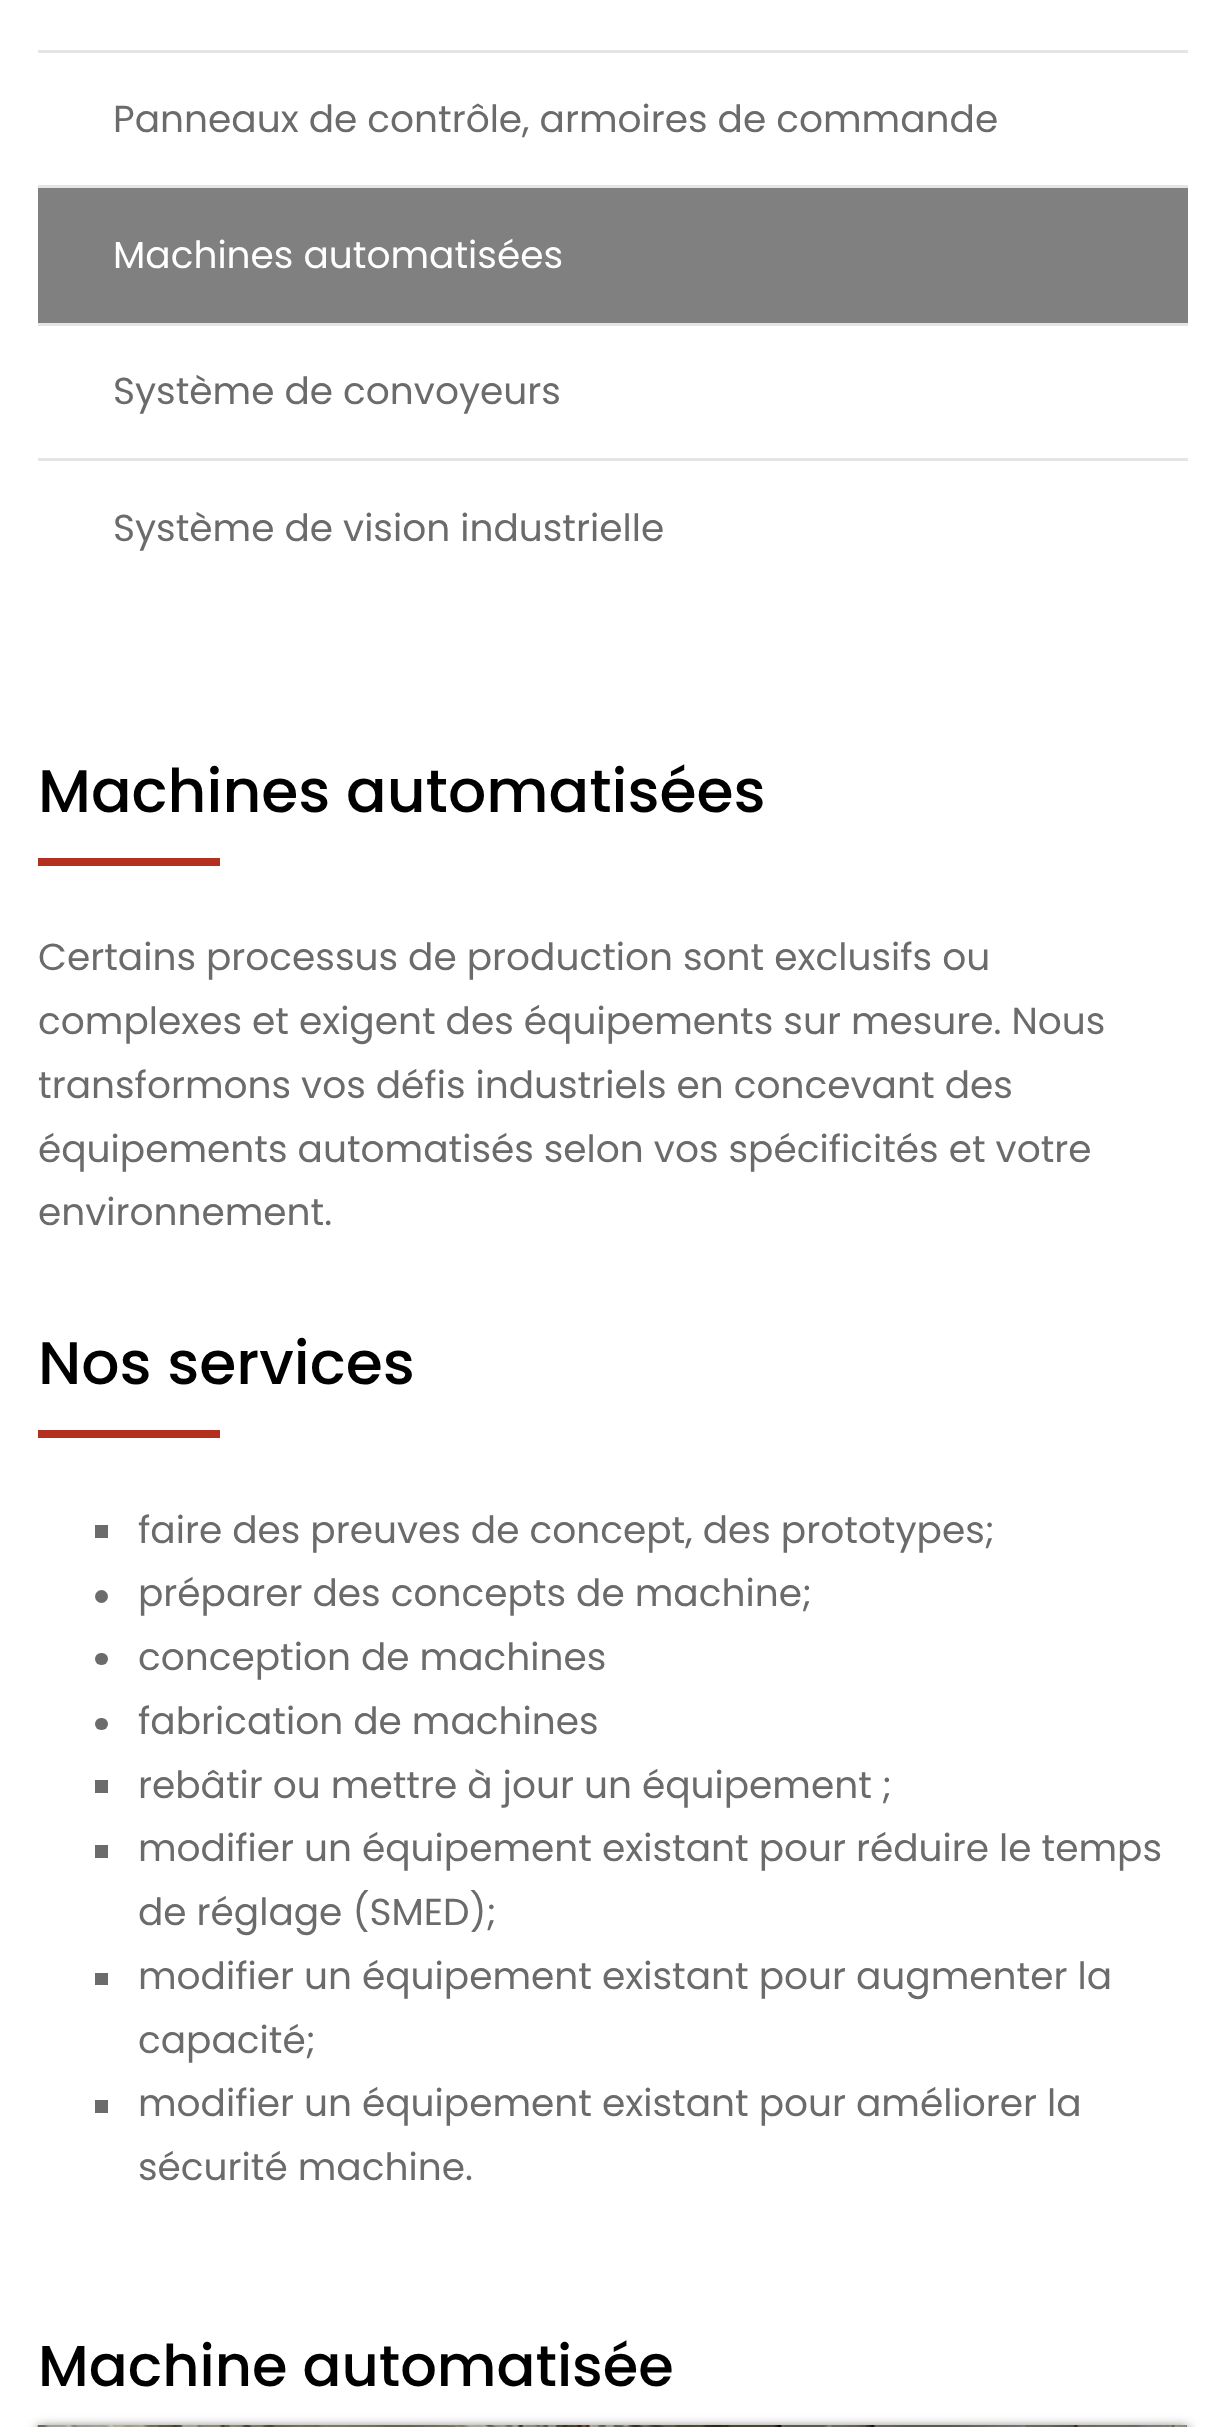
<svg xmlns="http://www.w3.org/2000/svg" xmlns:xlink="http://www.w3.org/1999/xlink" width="1225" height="2427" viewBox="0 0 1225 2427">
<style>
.cls-1{font:37.5px Poppins;fill:#6b6b6b}
.cls-2{font:37.5px Poppins;fill:#ffffff}
.cls-3{font:500 60px Poppins;fill:#000000}
.cls-4{font:500 57.5px Poppins;fill:#000000}
</style>
<rect width="100%" height="100%" fill="#ffffff"/>
<rect fill="#e5e5e5" x="38" y="50" width="1150" height="3"/>
<rect fill="#e5e5e5" x="38" y="185" width="1150" height="3"/>
<rect fill="#808080" x="38" y="188" width="1150" height="135"/>
<rect fill="#e5e5e5" x="38" y="323" width="1150" height="3"/>
<rect fill="#e5e5e5" x="38" y="458" width="1150" height="3"/>
<rect fill="#b3301f" x="38" y="858" width="182" height="8"/>
<rect fill="#b3301f" x="38" y="1430" width="182" height="8"/>
<rect fill="#6b6b6b" x="95" y="1525" width="13" height="13"/>
<circle fill="#6b6b6b" cx="101.5" cy="1596.5" r="6.5"/>
<rect fill="#6b6b6b" x="95" y="1653" width="13" height="12" rx="6"/>
<rect fill="#6b6b6b" x="95" y="1718" width="13" height="12" rx="6"/>
<rect fill="#6b6b6b" x="95" y="1780" width="13" height="13"/>
<rect fill="#6b6b6b" x="95" y="1845" width="13" height="13"/>
<rect fill="#6b6b6b" x="95" y="1973" width="13" height="12"/>
<rect fill="#6b6b6b" x="95" y="2100" width="13" height="13"/>
<rect fill="#4a4a4a" filter="blur(6px)" x="38" y="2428" width="1150" height="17"/>
<rect fill="#ffffff" x="1187" y="2425" width="1" height="2"/>
<image xlink:href="image0.png" x="37" y="2425" width="1151" height="2"/>
<text class="cls-1" x="113" y="132">Panneaux de contrôle, armoires de commande</text>
<text class="cls-2" x="113" y="268">Machines automatisées</text>
<text class="cls-1" x="113" y="404">Système de convoyeurs</text>
<text class="cls-1" x="113" y="541">Système de vision industrielle</text>
<text class="cls-3" x="38" y="812">Machines automatisées</text>
<text class="cls-1"><tspan x="38" y="970">Certains processus de production sont exclusifs ou</tspan><tspan x="38" y="1034">complexes et exigent des équipements sur mesure. Nous</tspan><tspan x="38" y="1098">transformons vos défis industriels en concevant des</tspan><tspan x="38" y="1162">équipements automatisés selon vos spécificités et votre</tspan><tspan x="38" y="1225">environnement.</tspan></text>
<text class="cls-3" x="38" y="1384">Nos services</text>
<text class="cls-1"><tspan x="138" y="1543">faire des preuves de concept, des prototypes;</tspan><tspan x="138" y="1606">préparer des concepts de machine;</tspan><tspan x="138" y="1670">conception de machines</tspan><tspan x="138" y="1734">fabrication de machines</tspan><tspan x="138" y="1798">rebâtir ou mettre à jour un équipement ;</tspan><tspan x="138" y="1861">modifier un équipement existant pour réduire le temps</tspan><tspan x="138" y="1925">de réglage (SMED);</tspan><tspan x="138" y="1989">modifier un équipement existant pour augmenter la</tspan><tspan x="138" y="2053">capacité;</tspan><tspan x="138" y="2116">modifier un équipement existant pour améliorer la</tspan><tspan x="138" y="2180">sécurité machine.</tspan></text>
<text class="cls-4" x="38" y="2386">Machine automatisée</text>
</svg>
